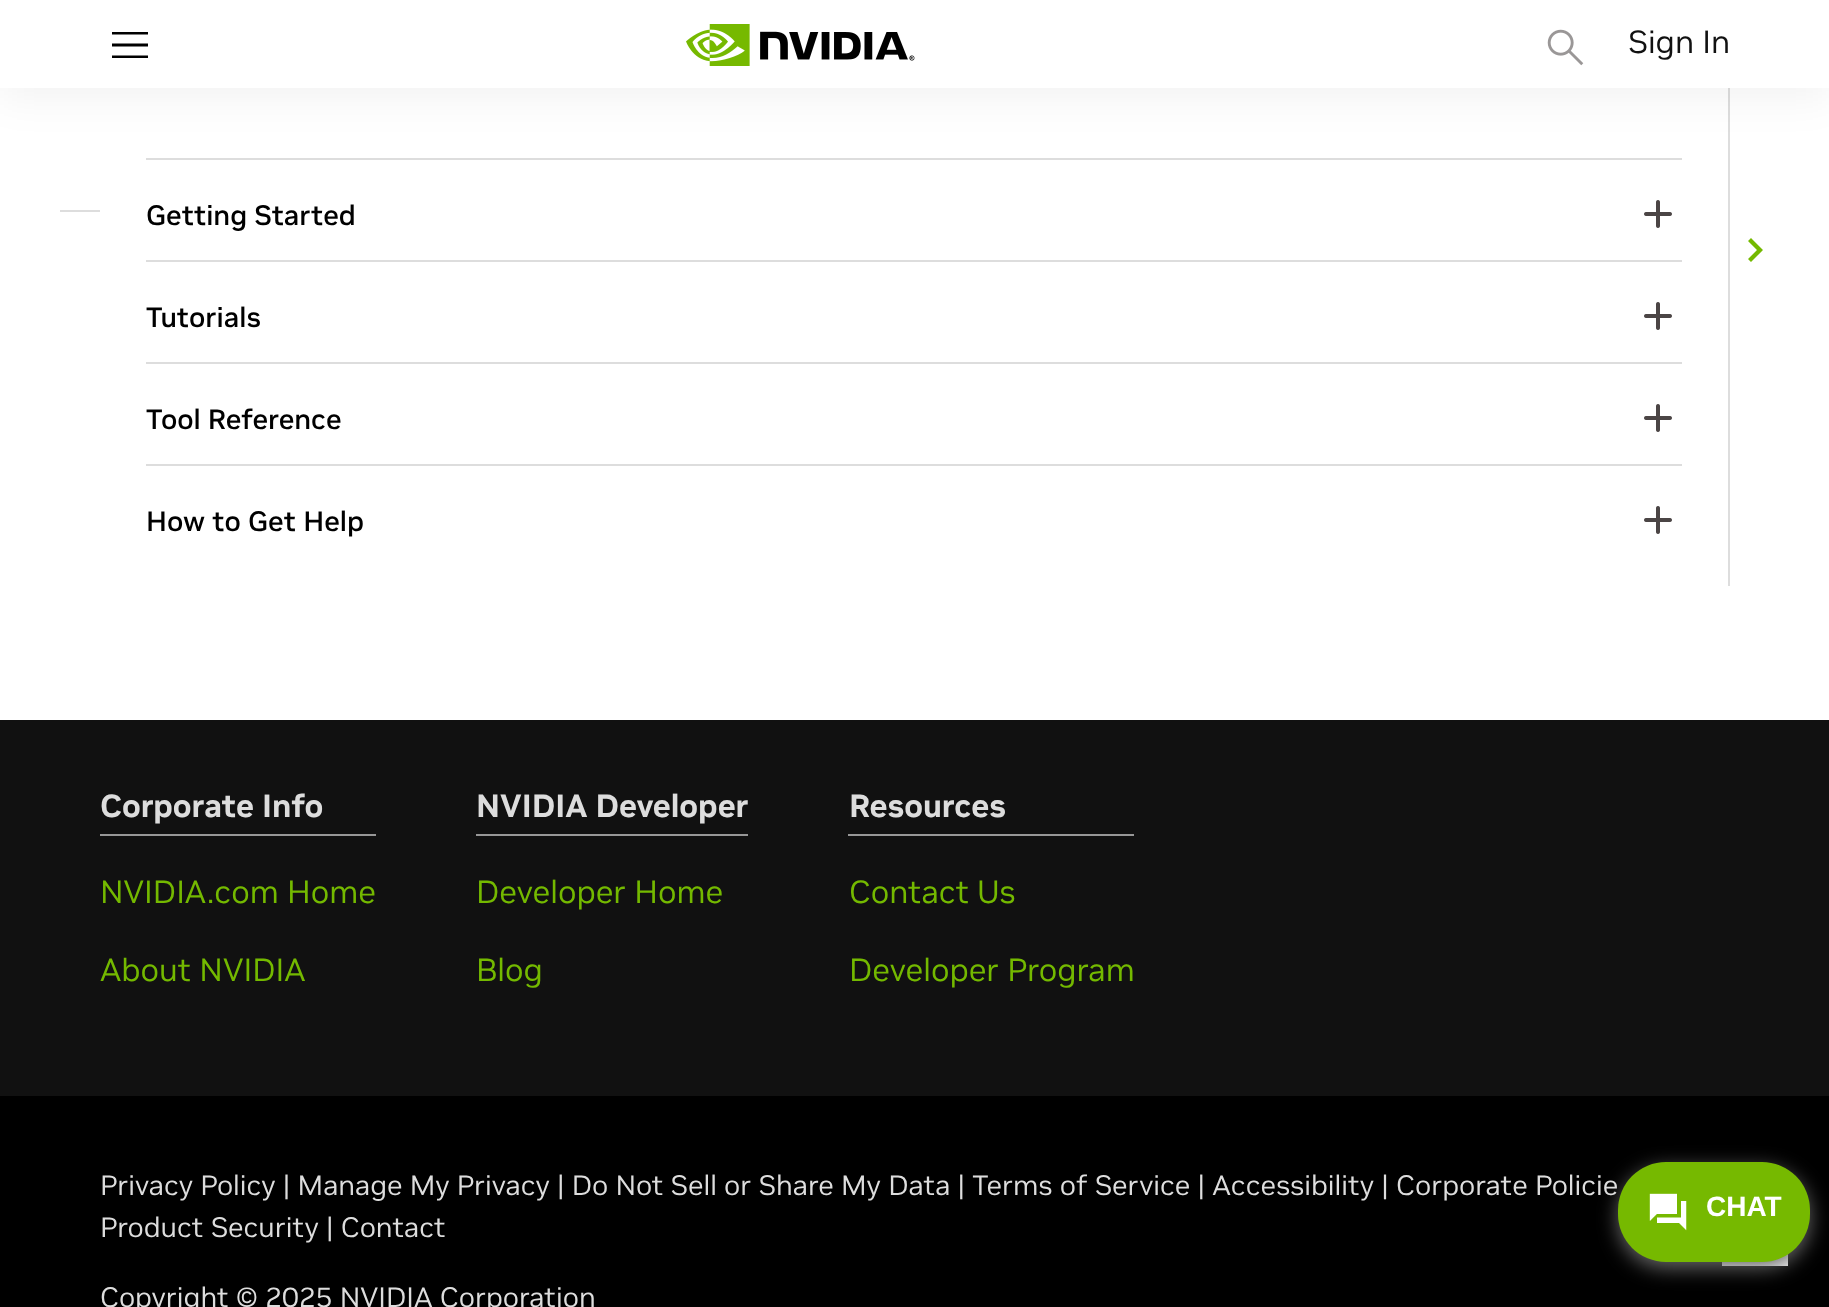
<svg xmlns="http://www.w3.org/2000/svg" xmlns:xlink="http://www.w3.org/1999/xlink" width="1829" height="1307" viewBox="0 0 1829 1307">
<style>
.cls-1{font:32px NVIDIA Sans;fill:#111111}
.cls-2{font:500 28px NVIDIA Sans;fill:#000000}
.cls-3{font:bold 32px NVIDIA Sans;fill:#dddddd}
.cls-4{font:32px NVIDIA Sans;fill:#74b900}
.cls-5{font:28px NVIDIA Sans;fill:#dddddd}
.cls-6{font:bold 28px Liberation Sans;fill:#ffffff}
</style>
<rect width="100%" height="100%" fill="#ffffff"/>
<rect fill="#dddddd" x="1728" y="88" width="2" height="498"/>
<rect fill="#dddddd" x="146" y="158" width="1536" height="2"/>
<rect fill="#000000" fill-opacity="0.05" filter="blur(20px)" x="0" y="10" width="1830" height="88"/>
<rect fill="#ffffff" x="0" y="0" width="1829" height="88"/>
<path fill="#000000" fill-rule="evenodd" d="M112 46.5V43.5H148V46.5ZM112 34.5V32H148V34.5ZM112 58V55.5H148V58Z"/>
<image xlink:href="image0.png" x="686" y="24" width="229" height="42"/>
<image xlink:href="image1.png" x="1547" y="29" width="37" height="37"/>
<image xlink:href="image2.png" x="1644" y="200" width="28" height="28"/>
<rect fill="#dddddd" x="146" y="260" width="1536" height="2"/>
<image xlink:href="image2.png" x="1644" y="302" width="28" height="28"/>
<rect fill="#dddddd" x="146" y="362" width="1536" height="2"/>
<image xlink:href="image2.png" x="1644" y="404" width="28" height="28"/>
<rect fill="#dddddd" x="146" y="464" width="1536" height="2"/>
<image xlink:href="image2.png" x="1644" y="506" width="28" height="28"/>
<rect fill="#dddddd" x="60" y="210" width="40" height="2"/>
<path fill="#74b900" d="M1757 250L1748 241L1751 238L1763 250L1751 262L1748 259Z"/>
<rect fill="#111111" x="0" y="720" width="1829" height="376"/>
<rect fill="#979797" x="100" y="834" width="276" height="2"/>
<rect fill="#979797" x="476" y="834" width="272" height="2"/>
<rect fill="#979797" x="848" y="834" width="286" height="2"/>
<rect fill="#000000" x="0" y="1096" width="1829" height="211"/>
<rect fill="#ffffff" x="1722" y="1254" width="66" height="12"/>
<rect fill="#666666" filter="blur(10px)" x="1618" y="1168" width="192" height="100" rx="48"/>
<rect fill="#76b900" x="1618" y="1162" width="192" height="100" rx="48"/>
<image xlink:href="image3.png" x="1649" y="1193" width="38" height="38"/>
<text class="cls-1" x="1628" y="53">Sign In</text>
<text class="cls-2" x="146" y="225">Getting Started</text>
<text class="cls-2" x="146" y="327">Tutorials</text>
<text class="cls-2" x="146" y="429">Tool Reference</text>
<text class="cls-2" x="146" y="531">How to Get Help</text>
<text class="cls-3" x="100" y="817">Corporate Info</text>
<text class="cls-4" x="100" y="903">NVIDIA.com Home</text>
<text class="cls-4" x="100" y="981">About NVIDIA</text>
<text class="cls-3" x="476" y="817">NVIDIA Developer</text>
<text class="cls-4" x="476" y="903">Developer Home</text>
<text class="cls-4" x="476" y="981">Blog</text>
<text class="cls-3" x="849" y="817">Resources</text>
<text class="cls-4" x="849" y="903">Contact Us</text>
<text class="cls-4" x="849" y="981">Developer Program</text>
<text class="cls-5"><tspan x="100" y="1195">Privacy Policy | Manage My Privacy | Do Not Sell or Share My Data | Terms of Service | Accessibility | Corporate Policie</tspan><tspan x="100" y="1237">Product Security | Contact</tspan></text>
<text class="cls-5" x="100" y="1307">Copyright © 2025 NVIDIA Corporation</text>
<text class="cls-6" x="1706" y="1216">CHAT</text>
</svg>
